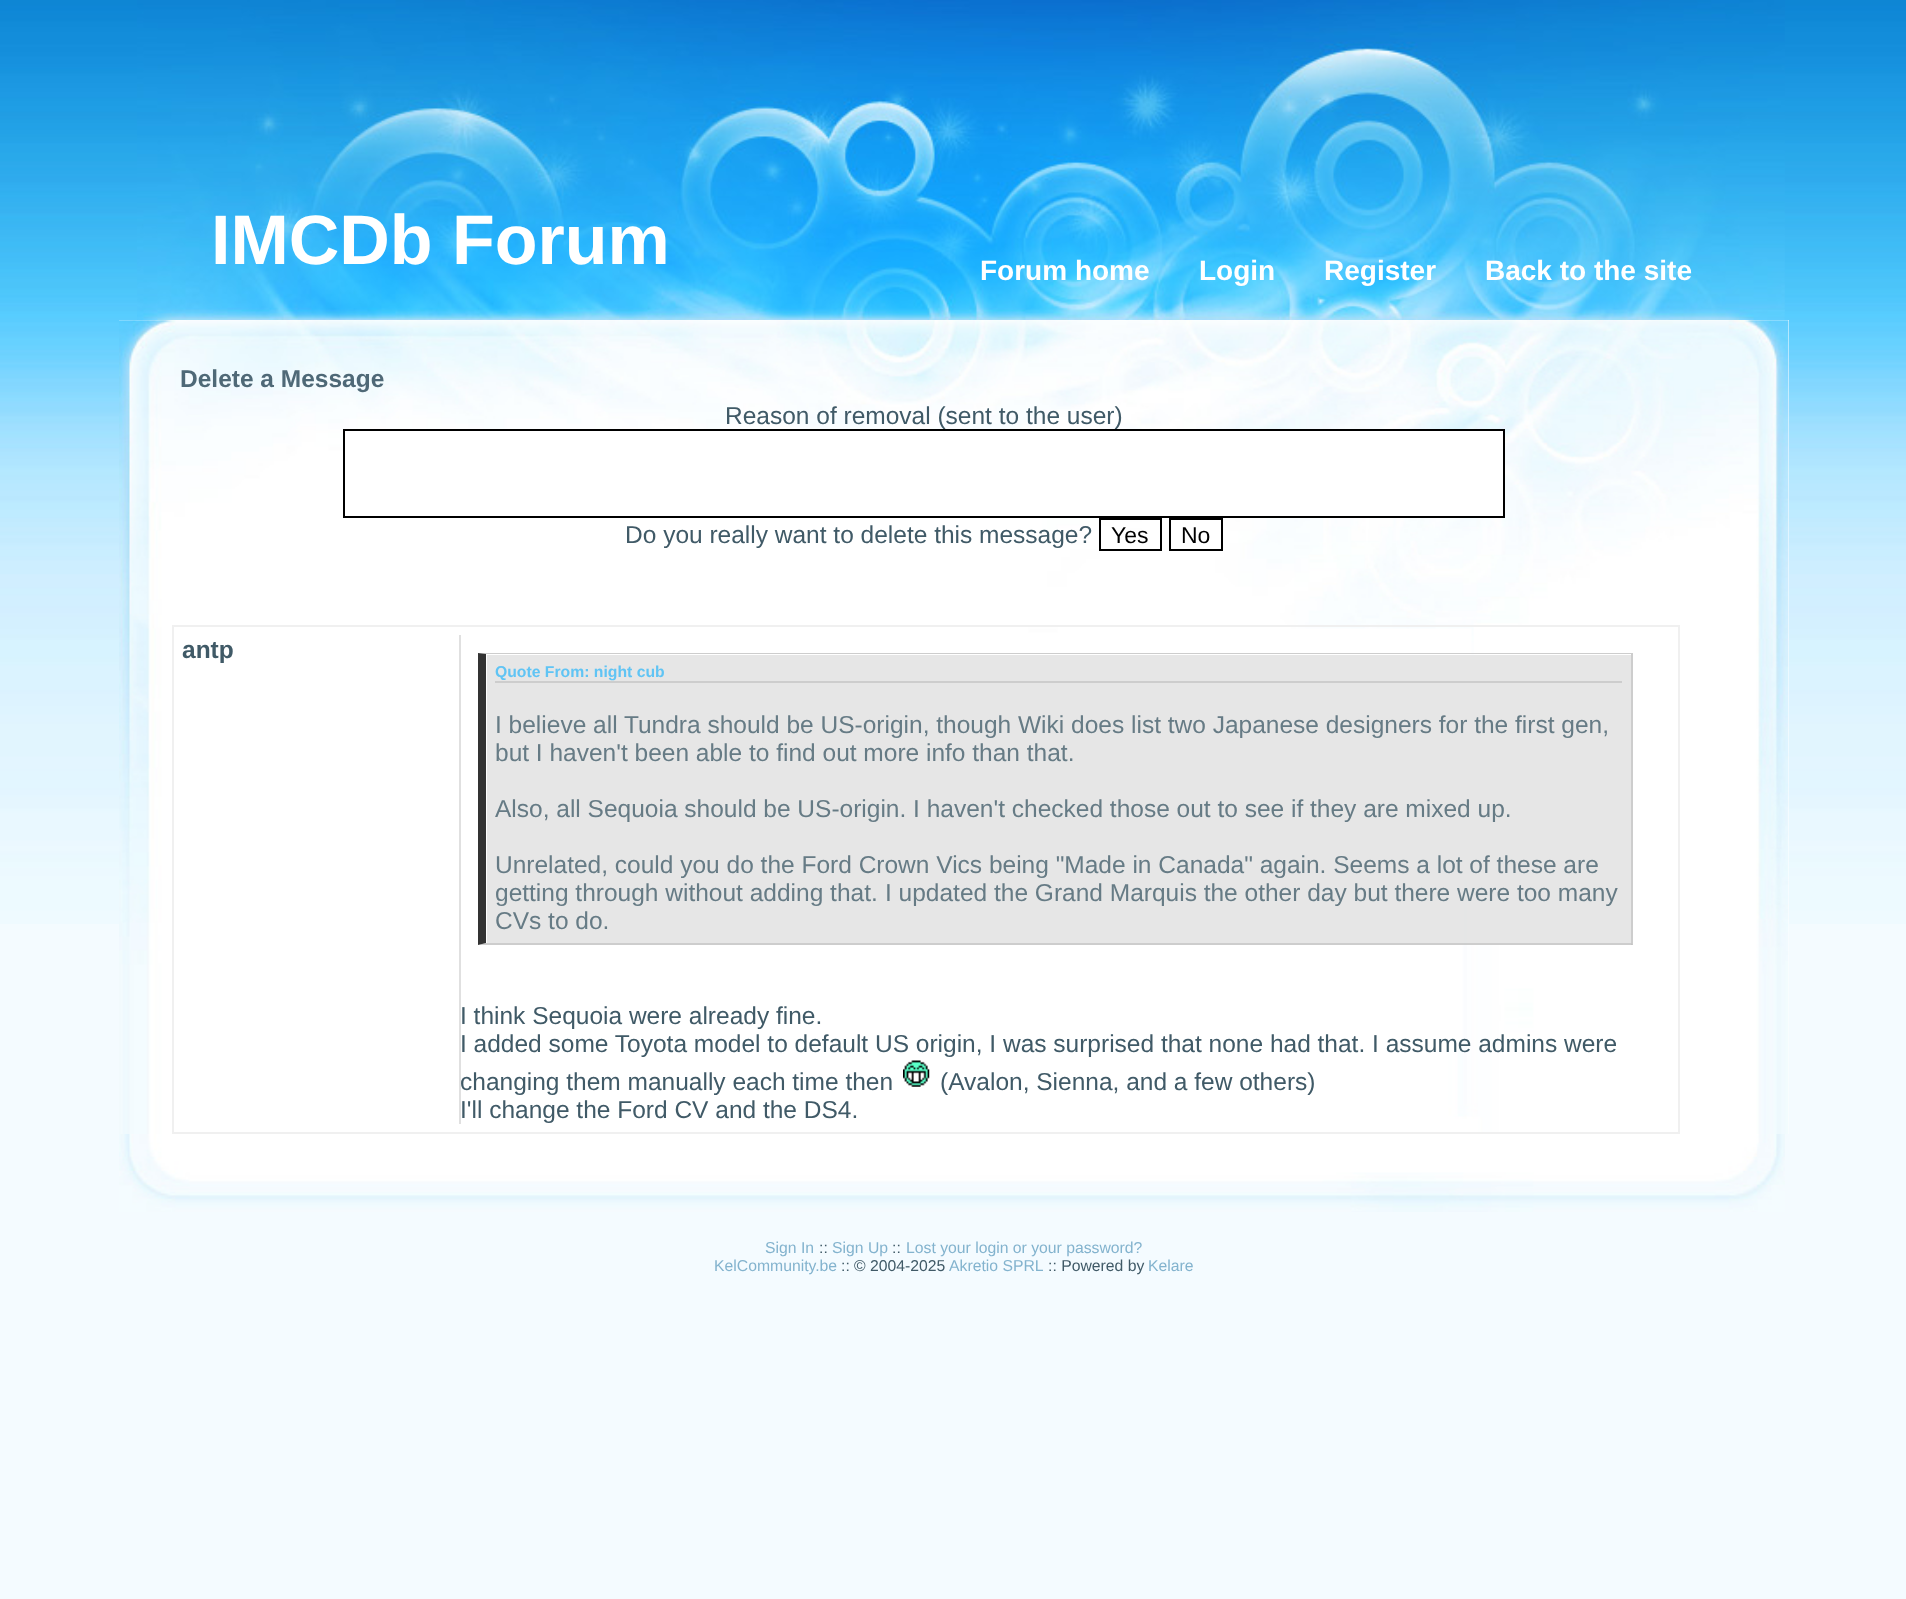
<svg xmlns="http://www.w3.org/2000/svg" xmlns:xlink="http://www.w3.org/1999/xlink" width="1906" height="1599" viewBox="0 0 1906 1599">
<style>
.cls-1{font:bold 70px Liberation Sans;fill:#ffffff}
.cls-2{font:bold 28px Liberation Sans;fill:#ffffff}
.cls-3{font:bold 24.5px Liberation Sans;fill:#4f6977}
.cls-4{font:24.5px Liberation Sans;fill:#405a67}
.cls-5{font:23px Liberation Sans;fill:#000000}
.cls-6{font:bold 24.5px Liberation Sans;fill:#405a67}
.cls-7{font:bold 15.75px Liberation Sans;fill:#60c4f4}
.cls-8{font:24.5px Liberation Sans;fill:#667b85}
.cls-9{font:15.75px Liberation Sans;fill:#83b3ce}
.cls-10{font:15.75px Liberation Sans;fill:#405a67}
</style>
<rect width="100%" height="100%" fill="#f4fbff"/>
<image xlink:href="image0.png" x="0" y="0" width="1906" height="924"/>
<image xlink:href="image1.png" x="137" y="0" width="1648" height="320"/>
<rect fill="#ffffff" x="119" y="320" width="1670" height="814"/>
<image xlink:href="image2.png" x="119" y="320" width="1670" height="814"/>
<rect fill="none" stroke="#000000" stroke-width="2" x="1100" y="519" width="61" height="31"/>
<rect fill="none" stroke="#000000" stroke-width="2" x="1170" y="519" width="52" height="31"/>
<rect fill="none" stroke="#f0f0f0" stroke-width="2" x="173" y="626" width="1506" height="507"/>
<rect fill="#e0e0e0" x="459" y="635" width="2" height="489"/>
<rect fill="#e0e0e0" fill-opacity="0.8" x="487" y="655" width="1144" height="288"/>
<path fill="#cdcdcd" d="M478 653H1633L1631 654H486Z"/>
<rect fill="#cdcdcd" x="1631" y="653" width="2" height="292"/>
<path fill="#c0c0c0" fill-opacity="0.8" d="M1633 945H478L486 943H1631Z"/>
<path fill="#333333" d="M478 945V653L486 654V943Z"/>
<rect fill="#cdcdcd" x="495" y="681" width="1127" height="2"/>
<image xlink:href="image3.png" x="903" y="1060" width="27" height="27"/>
<image xlink:href="image4.png" x="119" y="1134" width="1666" height="78"/>
<text class="cls-1" x="211" y="264">IMCDb Forum</text>
<text class="cls-2" x="980" y="280">Forum home</text>
<text class="cls-2" x="1199" y="280">Login</text>
<text class="cls-2" x="1324" y="280">Register</text>
<text class="cls-2" x="1485" y="280">Back to the site</text>
<text class="cls-3" x="180" y="387">Delete a Message</text>
<text class="cls-4" x="725" y="424">Reason of removal (sent to the user)</text>
<rect fill="#ffffff" stroke="#000000" stroke-width="2" x="344" y="430" width="1160" height="87"/>
<text class="cls-4" x="625" y="543">Do you really want to delete this message?</text>
<text class="cls-5" x="1111" y="543">Yes</text>
<text class="cls-5" x="1181" y="543">No</text>
<text class="cls-6" x="182" y="658">antp</text>
<text class="cls-7" x="495" y="677">Quote From: night cub</text>
<text class="cls-8"><tspan x="495" y="733">I believe all Tundra should be US-origin, though Wiki does list two Japanese designers for the first gen,</tspan><tspan x="495" y="761">but I haven't been able to find out more info than that.</tspan></text>
<text class="cls-8" x="495" y="817">Also, all Sequoia should be US-origin. I haven't checked those out to see if they are mixed up.</text>
<text class="cls-8"><tspan x="495" y="873">Unrelated, could you do the Ford Crown Vics being "Made in Canada" again. Seems a lot of these are</tspan><tspan x="495" y="901">getting through without adding that.</tspan></text>
<text class="cls-8" x="885" y="901">I updated the Grand Marquis the other day but there were too many</text>
<text class="cls-8" x="495" y="929">CVs to do.</text>
<text class="cls-4"><tspan x="460" y="1024">I think Sequoia were already fine.</tspan><tspan x="460" y="1052">I added some Toyota model to default US origin, I was surprised that none had that. I assume admins were</tspan><tspan x="460" y="1090">changing them manually each time then</tspan></text>
<text class="cls-4" x="940" y="1090">(Avalon, Sienna, and a few others)</text>
<text class="cls-4" x="460" y="1118">I'll change the Ford CV and the DS4.</text>
<text class="cls-9" x="765" y="1253">Sign In</text>
<text class="cls-10" x="819" y="1253">::</text>
<text class="cls-9" x="832" y="1253">Sign Up</text>
<text class="cls-10" x="892" y="1253">::</text>
<text class="cls-9" x="906" y="1253">Lost your login or your password?</text>
<text class="cls-9" x="714" y="1271">KelCommunity.be</text>
<text class="cls-10" x="841" y="1271">::</text>
<text class="cls-10" x="854" y="1271">© 2004-2025</text>
<text class="cls-9" x="949" y="1271">Akretio SPRL</text>
<text class="cls-10" x="1048" y="1271">:: Powered by</text>
<text class="cls-9" x="1148" y="1271">Kelare</text>
</svg>
